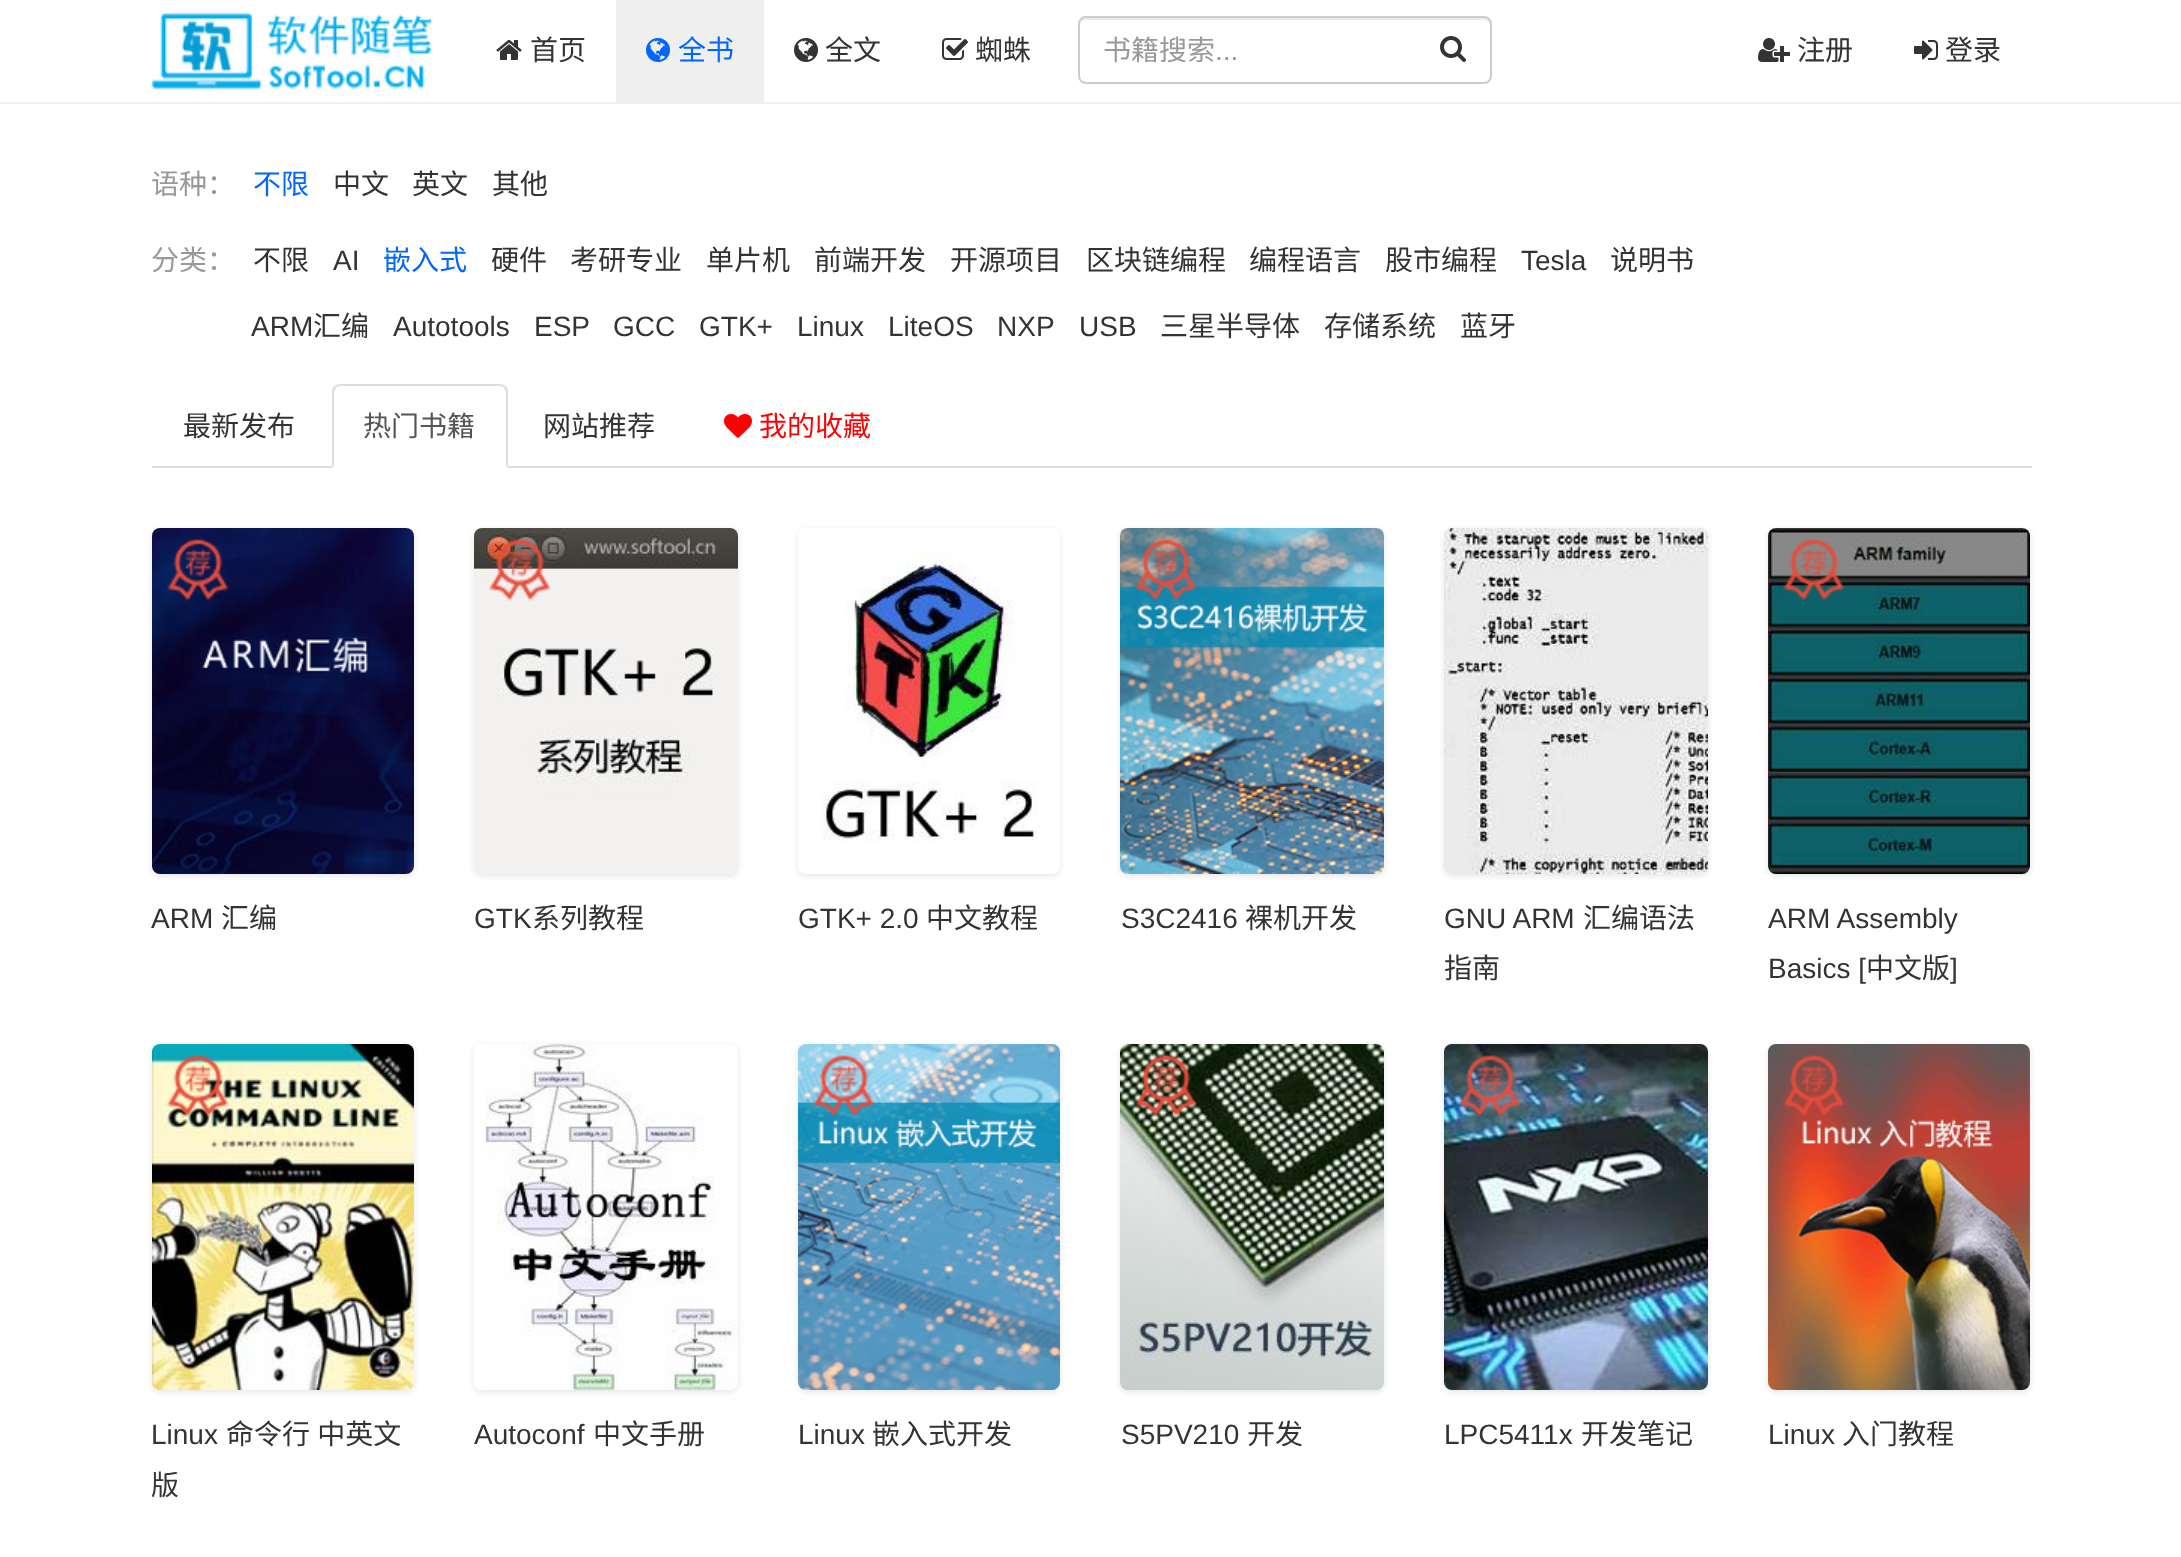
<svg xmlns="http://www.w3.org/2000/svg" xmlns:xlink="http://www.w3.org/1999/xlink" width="2181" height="1557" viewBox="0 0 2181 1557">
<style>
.cls-1{font:28px Noto Sans CJK SC;fill:#333333}
.cls-2{font:28px Noto Sans CJK SC;fill:#0066ff}
.cls-3{font:28px Noto Sans CJK SC;fill:#999999}
.cls-4{font:28px Liberation Sans;fill:#999999}
.cls-5{font:28px Liberation Sans;fill:#333333}
.cls-6{font:28px Noto Sans CJK SC;fill:#555555}
.cls-7{font:28px Noto Sans CJK SC;fill:#ff0000}
</style>
<defs>
<clipPath id="clip1"><path d="M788 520H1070V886H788ZM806 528H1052C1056.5 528 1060 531.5 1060 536V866C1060 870.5 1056.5 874 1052 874H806C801.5 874 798 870.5 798 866V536C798 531.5 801.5 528 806 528Z" clip-rule="evenodd"/></clipPath>
<clipPath id="clip2"><path d="M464 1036H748V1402H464ZM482 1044H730C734.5 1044 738 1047.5 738 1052V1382C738 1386.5 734.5 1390 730 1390H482C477.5 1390 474 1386.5 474 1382V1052C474 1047.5 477.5 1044 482 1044Z" clip-rule="evenodd"/></clipPath>
</defs>
<rect width="100%" height="100%" fill="#ffffff"/>
<rect fill="#efefef" x="0" y="102" width="2181" height="2"/>
<image xlink:href="image0.png" x="152" y="13" width="280" height="77"/>
<image xlink:href="image1.png" x="496" y="40" width="26" height="20"/>
<rect fill="#efefef" x="616" y="0" width="148" height="102"/>
<image xlink:href="image2.png" x="646" y="38" width="24" height="24"/>
<image xlink:href="image3.png" x="794" y="38" width="24" height="24"/>
<image xlink:href="image4.png" x="942" y="38" width="26" height="22"/>
<path fill="#ececec" d="M1086 20H1484C1487 20 1490 23 1490 26C1490 22 1489 18 1484 18H1086C1081 18 1080 22 1080 26C1080 23 1083 20 1086 20Z"/>
<rect fill="none" stroke="#cccccc" stroke-width="2" x="1079" y="17" width="412" height="66" rx="7"/>
<image xlink:href="image5.png" x="1440" y="36" width="26" height="26"/>
<image xlink:href="image6.png" x="1758" y="38" width="32" height="24"/>
<image xlink:href="image7.png" x="1914" y="40" width="24" height="20"/>
<rect fill="#dddddd" x="152" y="466" width="1880" height="2"/>
<path fill="#ffffff" d="M340 384H500C504.5 384 508 387.5 508 392V468H332V392C332 387.5 335.5 384 340 384Z"/>
<path fill="#dddddd" d="M340 384C338 384 336 385 334 386L336 388C337 387 338 386 340 386H500C502 386 503 387 504 388L506 386C504 385 502 384 500 384Z"/>
<path fill="#dddddd" d="M508 468V392C508 390 507 388 506 386L504 388L506 391V466Z"/>
<path fill="#dddddd" d="M332 468L334 466V391L336 388L334 386C333 388 332 390 332 392Z"/>
<image xlink:href="image8.png" x="724" y="414" width="28" height="24"/>
<rect fill="#000000" fill-opacity="0.1" filter="blur(3px)" x="152" y="530" width="262" height="346" rx="8"/>
<image xlink:href="image9.png" x="152" y="528" width="262" height="346"/>
<image xlink:href="image10.png" x="167" y="539" width="62" height="62"/>
<rect fill="#000000" fill-opacity="0.1" filter="blur(3px)" x="474" y="530" width="264" height="346" rx="8"/>
<image xlink:href="image11.png" x="474" y="528" width="264" height="346"/>
<image xlink:href="image12.png" x="489" y="539" width="62" height="62"/>
<g clip-path="url(#clip1)">
<rect fill="#000000" fill-opacity="0.1" filter="blur(3px)" x="798" y="530" width="262" height="346" rx="8"/>
</g>
<image xlink:href="image13.png" x="803" y="552" width="252" height="322"/>
<rect fill="#000000" fill-opacity="0.1" filter="blur(3px)" x="1120" y="530" width="264" height="346" rx="8"/>
<image xlink:href="image14.png" x="1120" y="528" width="264" height="346"/>
<image xlink:href="image15.png" x="1135" y="539" width="62" height="62"/>
<rect fill="#000000" fill-opacity="0.1" filter="blur(3px)" x="1444" y="530" width="264" height="346" rx="8"/>
<image xlink:href="image16.png" x="1444" y="528" width="264" height="346"/>
<rect fill="#000000" fill-opacity="0.1" filter="blur(3px)" x="1768" y="530" width="262" height="346" rx="8"/>
<image xlink:href="image17.png" x="1768" y="528" width="262" height="346"/>
<image xlink:href="image18.png" x="1783" y="539" width="62" height="62"/>
<rect fill="#000000" fill-opacity="0.1" filter="blur(3px)" x="152" y="1046" width="262" height="346" rx="8"/>
<image xlink:href="image19.png" x="152" y="1044" width="262" height="346"/>
<image xlink:href="image20.png" x="167" y="1055" width="62" height="62"/>
<g clip-path="url(#clip2)">
<rect fill="#000000" fill-opacity="0.1" filter="blur(3px)" x="474" y="1046" width="264" height="346" rx="8"/>
</g>
<image xlink:href="image21.png" x="485" y="1044" width="253" height="346"/>
<rect fill="#000000" fill-opacity="0.1" filter="blur(3px)" x="798" y="1046" width="262" height="346" rx="8"/>
<image xlink:href="image22.png" x="798" y="1044" width="262" height="346"/>
<image xlink:href="image23.png" x="813" y="1055" width="62" height="62"/>
<rect fill="#000000" fill-opacity="0.1" filter="blur(3px)" x="1120" y="1046" width="264" height="346" rx="8"/>
<image xlink:href="image24.png" x="1120" y="1044" width="264" height="346"/>
<image xlink:href="image25.png" x="1135" y="1055" width="62" height="62"/>
<rect fill="#000000" fill-opacity="0.1" filter="blur(3px)" x="1444" y="1046" width="264" height="346" rx="8"/>
<image xlink:href="image26.png" x="1444" y="1044" width="264" height="346"/>
<image xlink:href="image27.png" x="1459" y="1055" width="62" height="62"/>
<rect fill="#000000" fill-opacity="0.1" filter="blur(3px)" x="1768" y="1046" width="262" height="346" rx="8"/>
<image xlink:href="image28.png" x="1768" y="1044" width="262" height="346"/>
<image xlink:href="image29.png" x="1783" y="1055" width="62" height="62"/>
<text class="cls-1" x="530" y="60">首页</text>
<text class="cls-2" x="678" y="60">全书</text>
<text class="cls-1" x="825" y="60">全文</text>
<text class="cls-1" x="975" y="60">蜘蛛</text>
<text class="cls-3" x="1103" y="60">书籍搜索</text>
<text class="cls-4" x="1215" y="60">...</text>
<text class="cls-1" x="1797" y="60">注册</text>
<text class="cls-1" x="1945" y="60">登录</text>
<text class="cls-3" x="151" y="194">语种：</text>
<text class="cls-2" x="253" y="194">不限</text>
<text class="cls-1" x="333" y="194">中文</text>
<text class="cls-1" x="412" y="194">英文</text>
<text class="cls-1" x="492" y="194">其他</text>
<text class="cls-3" x="151" y="270">分类：</text>
<text class="cls-1" x="253" y="270">不限</text>
<text class="cls-5" x="333" y="270">AI</text>
<text class="cls-2" x="383" y="270">嵌入式</text>
<text class="cls-1" x="491" y="270">硬件</text>
<text class="cls-1" x="570" y="270">考研专业</text>
<text class="cls-1" x="706" y="270">单片机</text>
<text class="cls-1" x="814" y="270">前端开发</text>
<text class="cls-1" x="950" y="270">开源项目</text>
<text class="cls-1" x="1086" y="270">区块链编程</text>
<text class="cls-1" x="1249" y="270">编程语言</text>
<text class="cls-1" x="1385" y="270">股市编程</text>
<text class="cls-5" x="1521" y="270">Tesla</text>
<text class="cls-1" x="1610" y="270">说明书</text>
<text class="cls-5" x="251" y="336">ARM</text>
<text class="cls-1" x="313" y="336">汇编</text>
<text class="cls-5" x="393" y="336">Autotools</text>
<text class="cls-5" x="534" y="336">ESP</text>
<text class="cls-5" x="613" y="336">GCC</text>
<text class="cls-5" x="699" y="336">GTK+</text>
<text class="cls-5" x="797" y="336">Linux</text>
<text class="cls-5" x="888" y="336">LiteOS</text>
<text class="cls-5" x="997" y="336">NXP</text>
<text class="cls-5" x="1079" y="336">USB</text>
<text class="cls-1" x="1160" y="336">三星半导体</text>
<text class="cls-1" x="1324" y="336">存储系统</text>
<text class="cls-1" x="1460" y="336">蓝牙</text>
<text class="cls-1" x="183" y="436">最新发布</text>
<text class="cls-6" x="363" y="436">热门书籍</text>
<text class="cls-1" x="543" y="436">网站推荐</text>
<text class="cls-7" x="759" y="436">我的收藏</text>
<text class="cls-5" x="151" y="928">ARM</text>
<text class="cls-1" x="221" y="928">汇编</text>
<text class="cls-5" x="474" y="928">GTK</text>
<text class="cls-1" x="532" y="928">系列教程</text>
<text class="cls-5" x="798" y="928">GTK+ 2.0</text>
<text class="cls-1" x="926" y="928">中文教程</text>
<text class="cls-5" x="1121" y="928">S3C2416</text>
<text class="cls-1" x="1245" y="928">裸机开发</text>
<text class="cls-5" x="1444" y="928">GNU ARM</text>
<text class="cls-1" x="1583" y="928">汇编语法</text>
<text class="cls-1" x="1444" y="978">指南</text>
<text class="cls-5"><tspan x="1768" y="928">ARM Assembly</tspan><tspan x="1768" y="978">Basics [</tspan></text>
<text class="cls-1" x="1866" y="978">中文版</text>
<text class="cls-5" x="1950" y="978">]</text>
<text class="cls-5" x="151" y="1444">Linux</text>
<text class="cls-1" x="226" y="1444" word-spacing="1">命令行 中英文</text>
<text class="cls-1" x="151" y="1495">版</text>
<text class="cls-5" x="474" y="1444">Autoconf</text>
<text class="cls-1" x="593" y="1444">中文手册</text>
<text class="cls-5" x="798" y="1444">Linux</text>
<text class="cls-1" x="872" y="1444">嵌入式开发</text>
<text class="cls-5" x="1121" y="1444">S5PV210</text>
<text class="cls-1" x="1247" y="1444">开发</text>
<text class="cls-5" x="1444" y="1444">LPC5411x</text>
<text class="cls-1" x="1581" y="1444">开发笔记</text>
<text class="cls-5" x="1768" y="1444">Linux</text>
<text class="cls-1" x="1842" y="1444">入门教程</text>
</svg>
